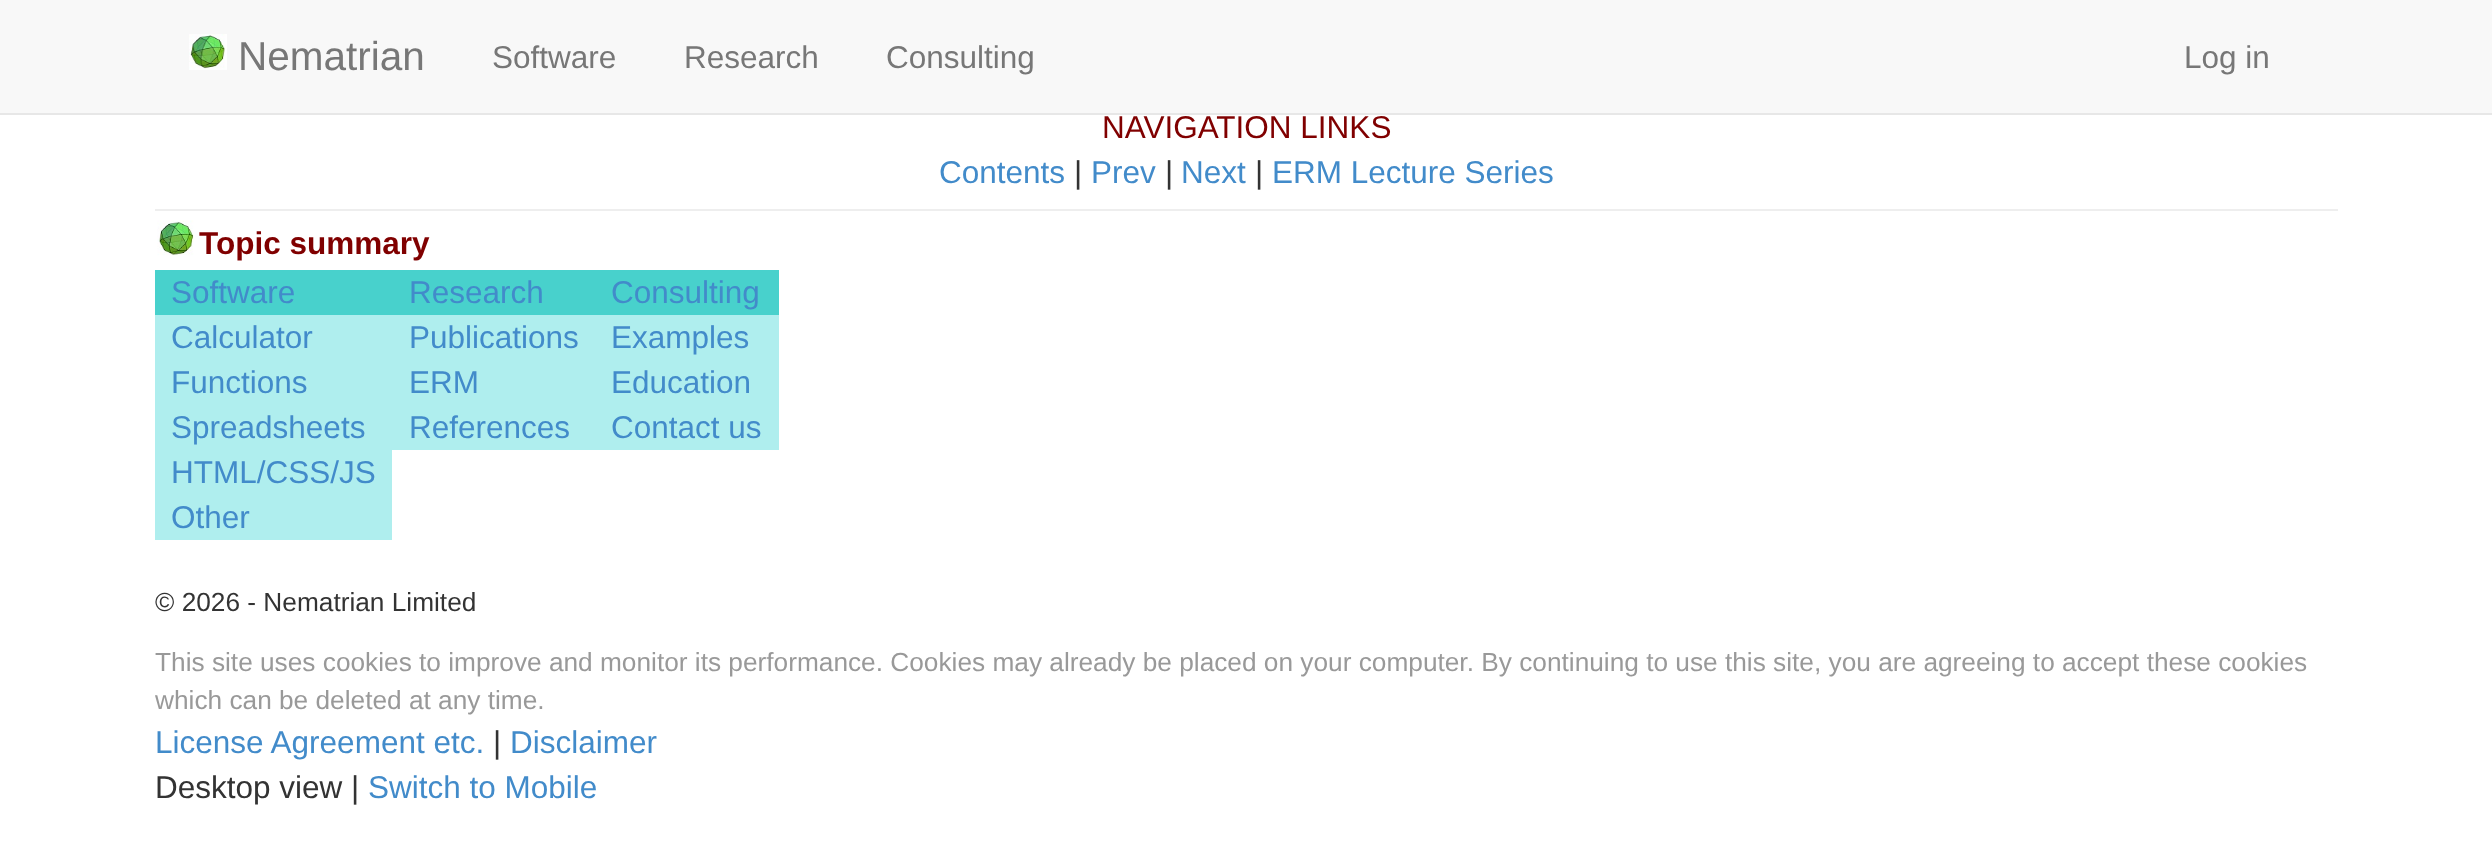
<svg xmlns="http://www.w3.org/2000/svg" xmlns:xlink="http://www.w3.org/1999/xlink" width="2492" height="854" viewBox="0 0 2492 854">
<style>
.cls-1{font:40.5px Liberation Sans;fill:#777777}
.cls-2{font:31.5px Liberation Sans;fill:#777777}
.cls-3{font:31.5px Liberation Sans;fill:#800000}
.cls-4{font:31.5px Liberation Sans;fill:#428bca}
.cls-5{font:31.5px Liberation Sans;fill:#333333}
.cls-6{font:bold 31.5px Liberation Sans;fill:#800000}
.cls-7{font:26.25px Liberation Sans;fill:#333333}
.cls-8{font:26.25px Liberation Sans;fill:#999999}
</style>
<rect width="100%" height="100%" fill="#ffffff"/>
<rect fill="#f8f8f8" x="0" y="0" width="2492" height="113"/>
<rect fill="#e7e7e7" x="0" y="113" width="2492" height="2"/>
<image xlink:href="image0.png" x="189" y="34" width="38" height="36"/>
<rect fill="#eeeeee" x="155" y="209" width="2183" height="2"/>
<image xlink:href="image1.png" x="157" y="220" width="37" height="36"/>
<rect fill="#48d1cc" x="155" y="270" width="624" height="45"/>
<rect fill="#afeeee" x="155" y="315" width="624" height="45"/>
<rect fill="#afeeee" x="155" y="360" width="624" height="45"/>
<rect fill="#afeeee" x="155" y="405" width="624" height="45"/>
<rect fill="#afeeee" x="155" y="450" width="237" height="90"/>
<text class="cls-1" x="238" y="70">Nematrian</text>
<text class="cls-2" x="492" y="68">Software</text>
<text class="cls-2" x="684" y="68">Research</text>
<text class="cls-2" x="886" y="68">Consulting</text>
<text class="cls-2" x="2184" y="68">Log in</text>
<text class="cls-3" x="1102" y="138">NAVIGATION LINKS</text>
<text class="cls-4" x="939" y="183">Contents</text>
<text class="cls-5" x="1074" y="183">|</text>
<text class="cls-4" x="1091" y="183">Prev</text>
<text class="cls-5" x="1165" y="183">|</text>
<text class="cls-4" x="1181" y="183">Next</text>
<text class="cls-5" x="1255" y="183">|</text>
<text class="cls-4" x="1272" y="183">ERM Lecture Series</text>
<text class="cls-6" x="199" y="254">Topic summary</text>
<text class="cls-4" x="171" y="303">Software</text>
<text class="cls-4" x="409" y="303">Research</text>
<text class="cls-4" x="611" y="303">Consulting</text>
<text class="cls-4" x="171" y="348">Calculator</text>
<text class="cls-4" x="409" y="348">Publications</text>
<text class="cls-4" x="611" y="348">Examples</text>
<text class="cls-4" x="171" y="393">Functions</text>
<text class="cls-4" x="409" y="393">ERM</text>
<text class="cls-4" x="611" y="393">Education</text>
<text class="cls-4" x="171" y="438">Spreadsheets</text>
<text class="cls-4" x="409" y="438">References</text>
<text class="cls-4" x="611" y="438">Contact us</text>
<text class="cls-4"><tspan x="171" y="483">HTML/CSS/JS</tspan><tspan x="171" y="528">Other</tspan></text>
<text class="cls-7" x="155" y="611">© 2026 - Nematrian Limited</text>
<text class="cls-8"><tspan x="155" y="671">This site uses cookies to improve and monitor its performance. Cookies may already be placed on your computer. By continuing to use this site, you are agreeing to accept these cookies</tspan><tspan x="155" y="709">which can be deleted at any time.</tspan></text>
<text class="cls-4" x="155" y="753">License Agreement etc.</text>
<text class="cls-5" x="493" y="753">|</text>
<text class="cls-4" x="510" y="753">Disclaimer</text>
<text class="cls-5" x="155" y="798">Desktop view |</text>
<text class="cls-4" x="368" y="798">Switch to Mobile</text>
</svg>
